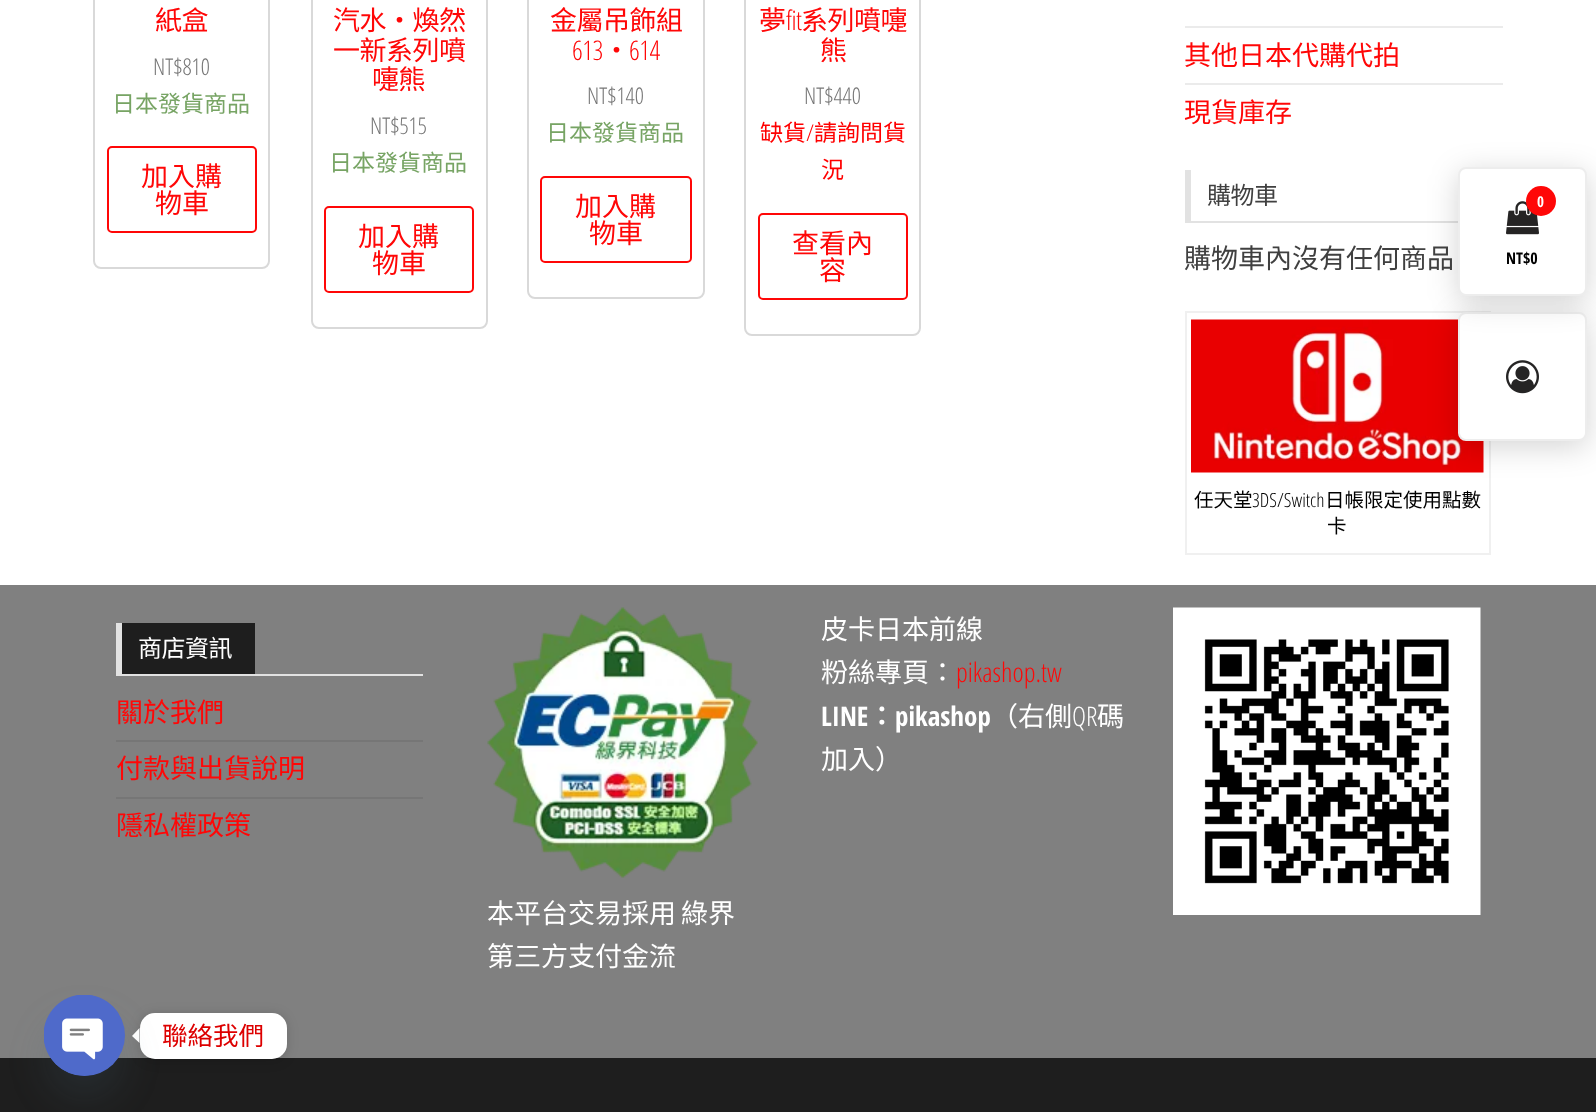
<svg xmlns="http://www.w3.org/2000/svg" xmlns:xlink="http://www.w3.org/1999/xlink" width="1596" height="1112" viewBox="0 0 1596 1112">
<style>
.cls-1{font:27px Noto Sans CJK TC;letter-spacing:-0.5px;fill:#ff0707}
.cls-2{font:300 23px Open Sans Condensed;fill:#777777}
.cls-3{font:23px Noto Sans CJK TC;fill:#77a464}
.cls-4{font:27px Noto Sans CJK TC;fill:#ff0707}
.cls-5{font:300 27px Open Sans Condensed;letter-spacing:-0.5px;fill:#ff0707}
.cls-6{font:23px Noto Sans CJK TC;fill:#ff0000}
.cls-7{font:300 23px Open Sans Condensed;fill:#ff0000}
.cls-8{font:24px Noto Sans CJK TC;letter-spacing:-0.5px;fill:#404040}
.cls-9{font:27px Noto Sans CJK TC;fill:#404040}
.cls-10{font:19.5px Noto Sans CJK TC;fill:#000000}
.cls-11{font:300 19.5px Open Sans Condensed;fill:#000000}
.cls-12{font:bold 15px Open Sans Condensed;fill:#ffffff}
.cls-13{font:bold 16px Open Sans Condensed;fill:#000000}
.cls-14{font:24px Noto Sans CJK TC;letter-spacing:-0.5px;fill:#ffffff}
.cls-15{font:27px Noto Sans CJK TC;fill:#ffffff}
.cls-16{font:300 27px Open Sans Condensed;fill:#ff0707}
.cls-17{font:bold 27px Open Sans Condensed;fill:#ffffff}
.cls-18{font:bold 27px Noto Sans CJK TC;fill:#ffffff}
.cls-19{font:300 27px Open Sans Condensed;fill:#ffffff}
.cls-20{font:25.5px Noto Sans CJK TC;fill:#dd0000}
</style>
<rect width="100%" height="100%" fill="#ffffff"/>
<rect fill="none" stroke="#d9d9d9" stroke-width="2" x="94" y="-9" width="175" height="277" rx="7"/>
<rect fill="none" stroke="#ff0707" stroke-width="2" x="108" y="147" width="148" height="85" rx="4"/>
<rect fill="none" stroke="#d9d9d9" stroke-width="2" x="312" y="-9" width="175" height="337" rx="7"/>
<rect fill="none" stroke="#ff0707" stroke-width="2" x="325" y="207" width="148" height="85" rx="4"/>
<rect fill="none" stroke="#d9d9d9" stroke-width="2" x="528" y="-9" width="176" height="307" rx="7"/>
<rect fill="none" stroke="#ff0707" stroke-width="2" x="541" y="177" width="150" height="85" rx="4"/>
<rect fill="none" stroke="#d9d9d9" stroke-width="2" x="745" y="-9" width="175" height="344" rx="7"/>
<rect fill="none" stroke="#ff0707" stroke-width="2" x="759" y="214" width="148" height="85" rx="4"/>
<rect fill="#ebebeb" x="1185" y="26" width="318" height="2"/>
<rect fill="#ebebeb" x="1185" y="83" width="318" height="2"/>
<rect fill="#e2e2e2" x="1185" y="221" width="273" height="2"/>
<rect fill="#e2e2e2" x="1185" y="170" width="6" height="51"/>
<rect fill="none" stroke="#f0f0f0" stroke-width="2" x="1186" y="312" width="304" height="242"/>
<image xlink:href="image0.png" x="1191" y="319" width="293" height="154"/>
<rect fill="#000000" fill-opacity="0.17" filter="blur(15px)" x="1458" y="318" width="129" height="129" rx="8"/>
<rect fill="#ffffff" stroke="#ededed" stroke-width="2" x="1459" y="313" width="127" height="127" rx="7"/>
<rect fill="#000000" fill-opacity="0.17" filter="blur(15px)" x="1458" y="173" width="129" height="129" rx="8"/>
<rect fill="#ffffff" stroke="#ededed" stroke-width="2" x="1459" y="168" width="127" height="127" rx="7"/>
<image xlink:href="image1.png" x="1506" y="201" width="33" height="34"/>
<circle fill="#ff0707" cx="1541" cy="201" r="15"/>
<image xlink:href="image2.png" x="1506" y="360" width="33" height="34"/>
<rect fill="#808080" x="0" y="585" width="1596" height="473"/>
<rect fill="#e2e2e2" x="116" y="674" width="307" height="2"/>
<rect fill="#1e1e1e" x="122" y="623" width="133" height="51"/>
<rect fill="#e2e2e2" x="116" y="623" width="6" height="51"/>
<rect fill="#767676" x="116" y="740" width="307" height="2"/>
<rect fill="#767676" x="116" y="797" width="307" height="2"/>
<image xlink:href="image3.png" x="1173" y="607" width="308" height="308"/>
<image xlink:href="image4.png" x="487" y="607" width="271" height="271"/>
<rect fill="#1e1e1e" x="0" y="1058" width="1596" height="54"/>
<rect fill="#000000" fill-opacity="0.15" filter="blur(6px)" x="140" y="1014" width="147" height="47" rx="15"/>
<rect fill="#ffffff" x="140" y="1013" width="147" height="46" rx="15"/>
<path fill="#ffffff" d="M139.5 1028V1043L132 1036Z"/>
<rect fill="#49687e" fill-opacity="0.16" filter="blur(18px)" x="44" y="1019" width="81" height="81" rx="40.5"/>
<circle fill="#4f6aca" cx="84.5" cy="1035.5" r="40.5"/>
<image xlink:href="image5.png" x="44" y="995" width="75" height="81"/>
<text class="cls-1" x="155" y="30">紙盒</text>
<text class="cls-2" x="153" y="75">NT$810</text>
<text class="cls-3" x="112" y="112">日本發貨商品</text>
<text class="cls-4" x="141" y="186">加入購</text>
<text class="cls-4" x="155" y="213">物車</text>
<text class="cls-1"><tspan x="333" y="30">汽水・煥然</tspan><tspan x="333" y="60">一新系列噴</tspan></text>
<text class="cls-1" x="372" y="89">嚏熊</text>
<text class="cls-2" x="370" y="134">NT$515</text>
<text class="cls-3" x="329" y="171">日本發貨商品</text>
<text class="cls-4" x="358" y="246">加入購</text>
<text class="cls-4" x="372" y="273">物車</text>
<text class="cls-1" x="550" y="30">金屬吊飾組</text>
<text class="cls-5" x="572" y="60">613</text>
<text class="cls-1" x="603" y="60">・</text>
<text class="cls-5" x="629" y="60">614</text>
<text class="cls-2" x="587" y="104">NT$140</text>
<text class="cls-3" x="546" y="141">日本發貨商品</text>
<text class="cls-4" x="575" y="216">加入購</text>
<text class="cls-4" x="589" y="243">物車</text>
<text class="cls-1" x="759" y="30">夢</text>
<text class="cls-5" x="786" y="30">fit</text>
<text class="cls-1" x="801" y="30">系列噴嚏</text>
<text class="cls-1" x="820" y="60">熊</text>
<text class="cls-2" x="804" y="104">NT$440</text>
<text class="cls-6" x="760" y="141">缺貨</text>
<text class="cls-7" x="806" y="141">/</text>
<text class="cls-6" x="814" y="141">請詢問貨</text>
<text class="cls-6" x="821" y="178">況</text>
<text class="cls-4" x="792" y="253">查看內</text>
<text class="cls-4" x="819" y="280">容</text>
<text class="cls-4" x="1184" y="65">其他日本代購代拍</text>
<text class="cls-4" x="1184" y="122">現貨庫存</text>
<text class="cls-8" x="1207" y="204">購物車</text>
<text class="cls-9" x="1184" y="268">購物車內沒有任何商品</text>
<text class="cls-10" x="1194" y="507">任天堂</text>
<text class="cls-11" x="1252" y="507">3DS/Switch</text>
<text class="cls-10" x="1325" y="507">日帳限定使用點數</text>
<text class="cls-10" x="1327" y="533">卡</text>
<text class="cls-12" x="1537" y="207">0</text>
<text class="cls-13" x="1506" y="264">NT$0</text>
<text class="cls-14" x="138" y="657">商店資訊</text>
<text class="cls-4" x="116" y="722">關於我們</text>
<text class="cls-4" x="116" y="778">付款與出貨說明</text>
<text class="cls-4" x="116" y="835">隱私權政策</text>
<text class="cls-15"><tspan x="821" y="639">皮卡日本前線</tspan><tspan x="821" y="682">粉絲專頁：</tspan></text>
<text class="cls-16" x="956" y="682">pikashop.tw</text>
<text class="cls-17" x="821" y="726">LINE</text>
<text class="cls-18" x="868" y="726">：</text>
<text class="cls-17" x="895" y="726">pikashop</text>
<text class="cls-15" x="991" y="726">（右側</text>
<text class="cls-19" x="1072" y="726">QR</text>
<text class="cls-15" x="1097" y="726">碼</text>
<text class="cls-15" x="821" y="769">加入）</text>
<text class="cls-15"><tspan x="487" y="923" word-spacing="-1">本平台交易採用 綠界</tspan><tspan x="487" y="966">第三方支付金流</tspan></text>
<text class="cls-20" x="162" y="1045">聯絡我們</text>
</svg>
